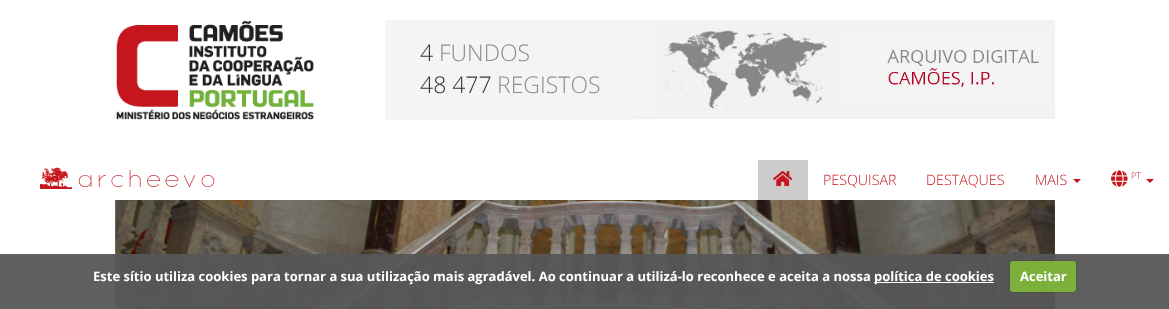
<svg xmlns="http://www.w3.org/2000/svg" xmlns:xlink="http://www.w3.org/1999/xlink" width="1169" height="309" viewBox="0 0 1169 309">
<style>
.cls-1{font:300 23px Open Sans;fill:#333333}
.cls-2{font:300 23px Open Sans;fill:#8c8c8c}
.cls-3{font:300 14.25px Open Sans;fill:#c4161c}
.cls-4{font:300 9px Open Sans;fill:#c4161c}
.cls-5{font:bold 13px Open Sans;fill:#ffffff}
</style>
<rect width="100%" height="100%" fill="#ffffff"/>
<image xlink:href="image0.png" x="116" y="20" width="198" height="100"/>
<rect fill="#f4f4f4" x="385" y="20" width="250" height="100"/>
<image xlink:href="image1.png" x="635" y="20" width="420" height="99"/>
<image xlink:href="image2.png" x="40" y="167" width="175" height="22"/>
<rect fill="#cccccc" x="758" y="160" width="50" height="40"/>
<image xlink:href="image3.png" x="773" y="171" width="20" height="16"/>
<path fill="#c4161c" d="M1073 179H1081L1077 183Z"/>
<image xlink:href="image4.png" x="1111" y="170" width="17" height="17"/>
<path fill="#c4161c" d="M1146 179H1154L1150 183Z"/>
<image xlink:href="image5.png" x="115" y="200" width="940" height="109"/>
<rect fill="#565656" fill-opacity="0.95" x="0" y="254" width="1169" height="55"/>
<rect fill="#ffffff" x="874" y="282" width="120" height="1"/>
<rect fill="#000000" fill-opacity="0.25" filter="blur(1px)" x="1010" y="261" width="66" height="31" rx="3"/>
<rect fill="#7daf3b" x="1010" y="261" width="66" height="31" rx="3"/>
<text class="cls-1" x="420" y="61">4</text>
<text class="cls-2" x="439" y="61">FUNDOS</text>
<text class="cls-1" x="420" y="93">48 477</text>
<text class="cls-2" x="497" y="93">REGISTOS</text>
<text class="cls-3" x="823" y="185">PESQUISAR</text>
<text class="cls-3" x="926" y="185">DESTAQUES</text>
<text class="cls-3" x="1035" y="185">MAIS</text>
<text class="cls-4" x="1131" y="179">PT</text>
<text class="cls-5" x="93" y="281">Este sítio utiliza cookies para tornar a sua utilização mais agradável. Ao continuar a utilizá-lo reconhece e aceita a nossa</text>
<text class="cls-5" x="874" y="281">política de cookies</text>
<text class="cls-5" x="1020" y="281">Aceitar</text>
</svg>
